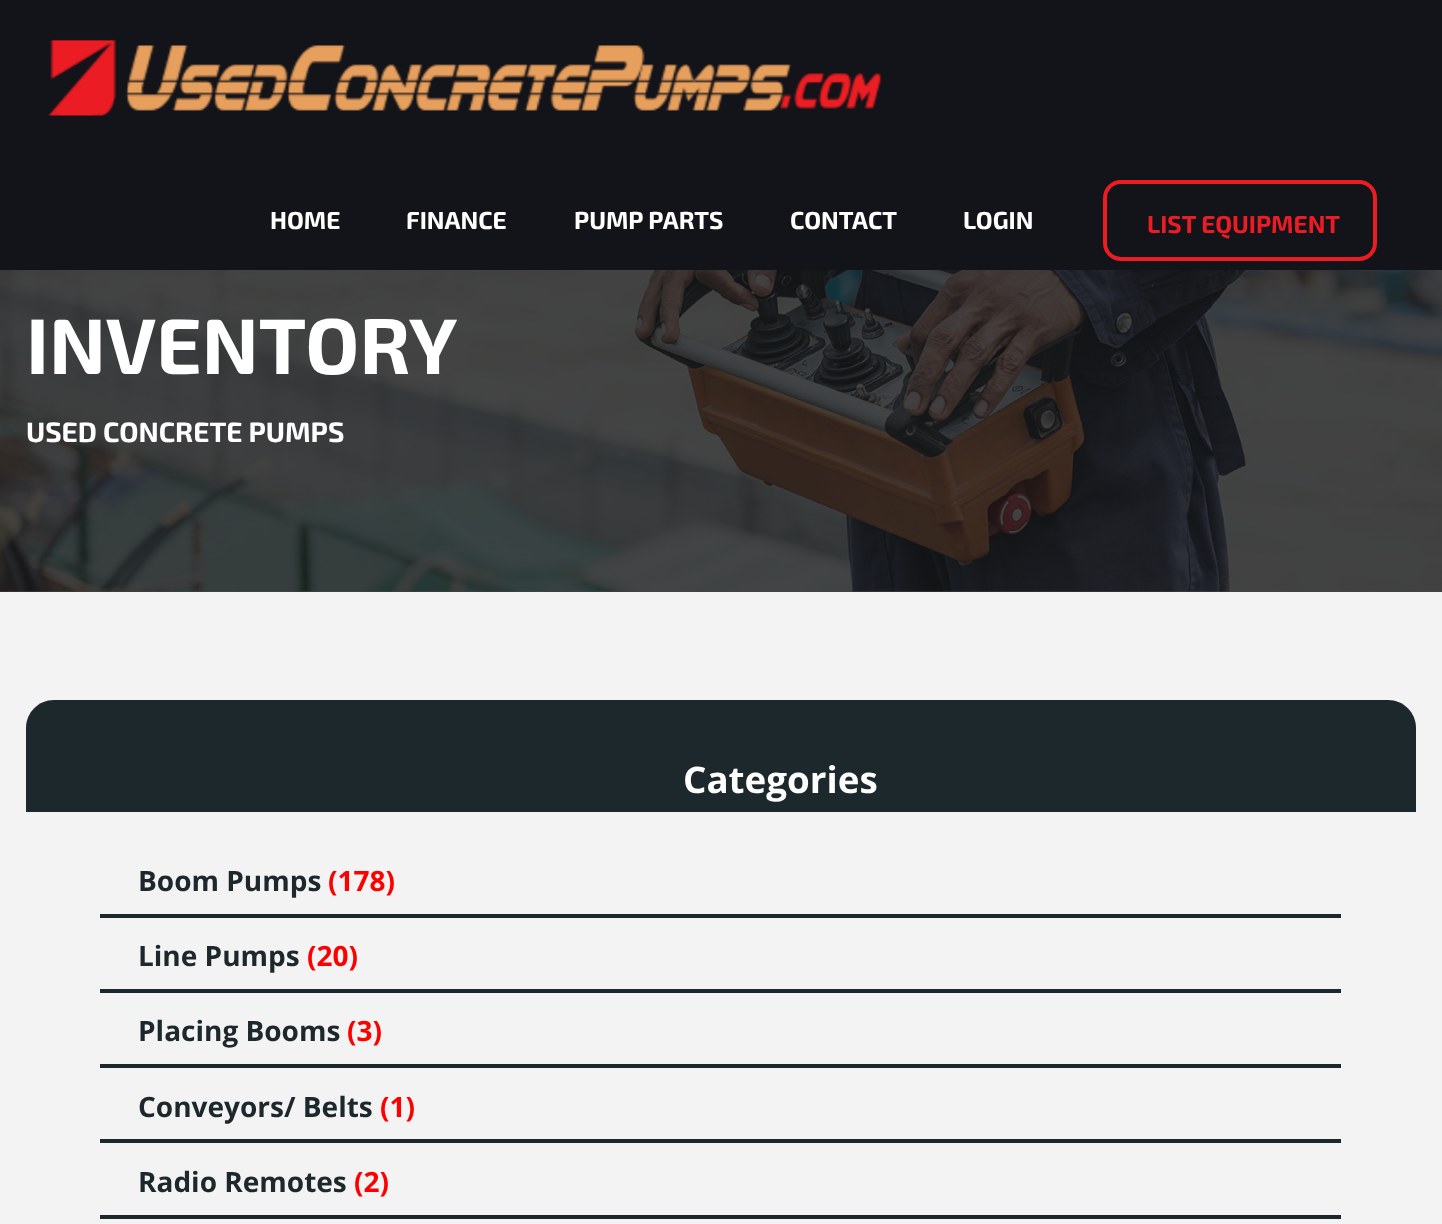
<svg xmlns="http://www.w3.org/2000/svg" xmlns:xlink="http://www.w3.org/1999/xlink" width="1442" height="1224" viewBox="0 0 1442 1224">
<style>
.cls-1{font:bold 24.5px 'Exo 2';fill:#ffffff}
.cls-2{font:bold 24.5px 'Exo 2';fill:#eb1c23}
.cls-3{font:bold 78.75px 'Exo 2';fill:#ffffff}
.cls-4{font:bold 28px 'Exo 2';fill:#ffffff}
.cls-5{font:bold 36.75px Open Sans;fill:#ffffff}
.cls-6{font:bold 28px Open Sans;fill:#1d282c}
.cls-7{font:bold 28px Open Sans;fill:#ff0000}
</style>
<rect width="100%" height="100%" fill="#f3f3f3"/>
<rect fill="#424445" x="0" y="591" width="1442" height="1"/>
<rect fill="#13131a" x="0" y="0" width="1442" height="270"/>
<image xlink:href="image0.png" x="48" y="39" width="834" height="77"/>
<rect fill="none" stroke="#eb1c23" stroke-width="4" x="1105" y="182" width="270" height="77" rx="16"/>
<image xlink:href="image1.png" x="0" y="270" width="1442" height="322"/>
<path fill="#1d282c" d="M54 700H1388C1403.5 700 1416 712.5 1416 728V812H26V728C26 712.5 38.5 700 54 700Z"/>
<rect fill="#1d282c" x="100" y="914" width="1241" height="4"/>
<rect fill="#1d282c" x="100" y="989" width="1241" height="4"/>
<rect fill="#1d282c" x="100" y="1064" width="1241" height="4"/>
<rect fill="#1d282c" x="100" y="1139" width="1241" height="4"/>
<rect fill="#1d282c" x="100" y="1215" width="1241" height="4"/>
<text class="cls-1" x="270" y="229">HOME</text>
<text class="cls-1" x="406" y="229">FINANCE</text>
<text class="cls-1" x="574" y="229">PUMP PARTS</text>
<text class="cls-1" x="790" y="229">CONTACT</text>
<text class="cls-1" x="963" y="229">LOGIN</text>
<text class="cls-2" x="1147" y="233">LIST EQUIPMENT</text>
<text class="cls-3" x="26" y="374">INVENTORY</text>
<text class="cls-4" x="26" y="442">USED CONCRETE PUMPS</text>
<text class="cls-5" x="683" y="793">Categories</text>
<text class="cls-6" x="138" y="891">Boom Pumps</text>
<text class="cls-7" x="328" y="891">(178)</text>
<text class="cls-6" x="138" y="966">Line Pumps</text>
<text class="cls-7" x="307" y="966">(20)</text>
<text class="cls-6" x="138" y="1041">Placing Booms</text>
<text class="cls-7" x="347" y="1041">(3)</text>
<text class="cls-6" x="138" y="1117">Conveyors/ Belts</text>
<text class="cls-7" x="380" y="1117">(1)</text>
<text class="cls-6" x="138" y="1192">Radio Remotes</text>
<text class="cls-7" x="354" y="1192">(2)</text>
</svg>
